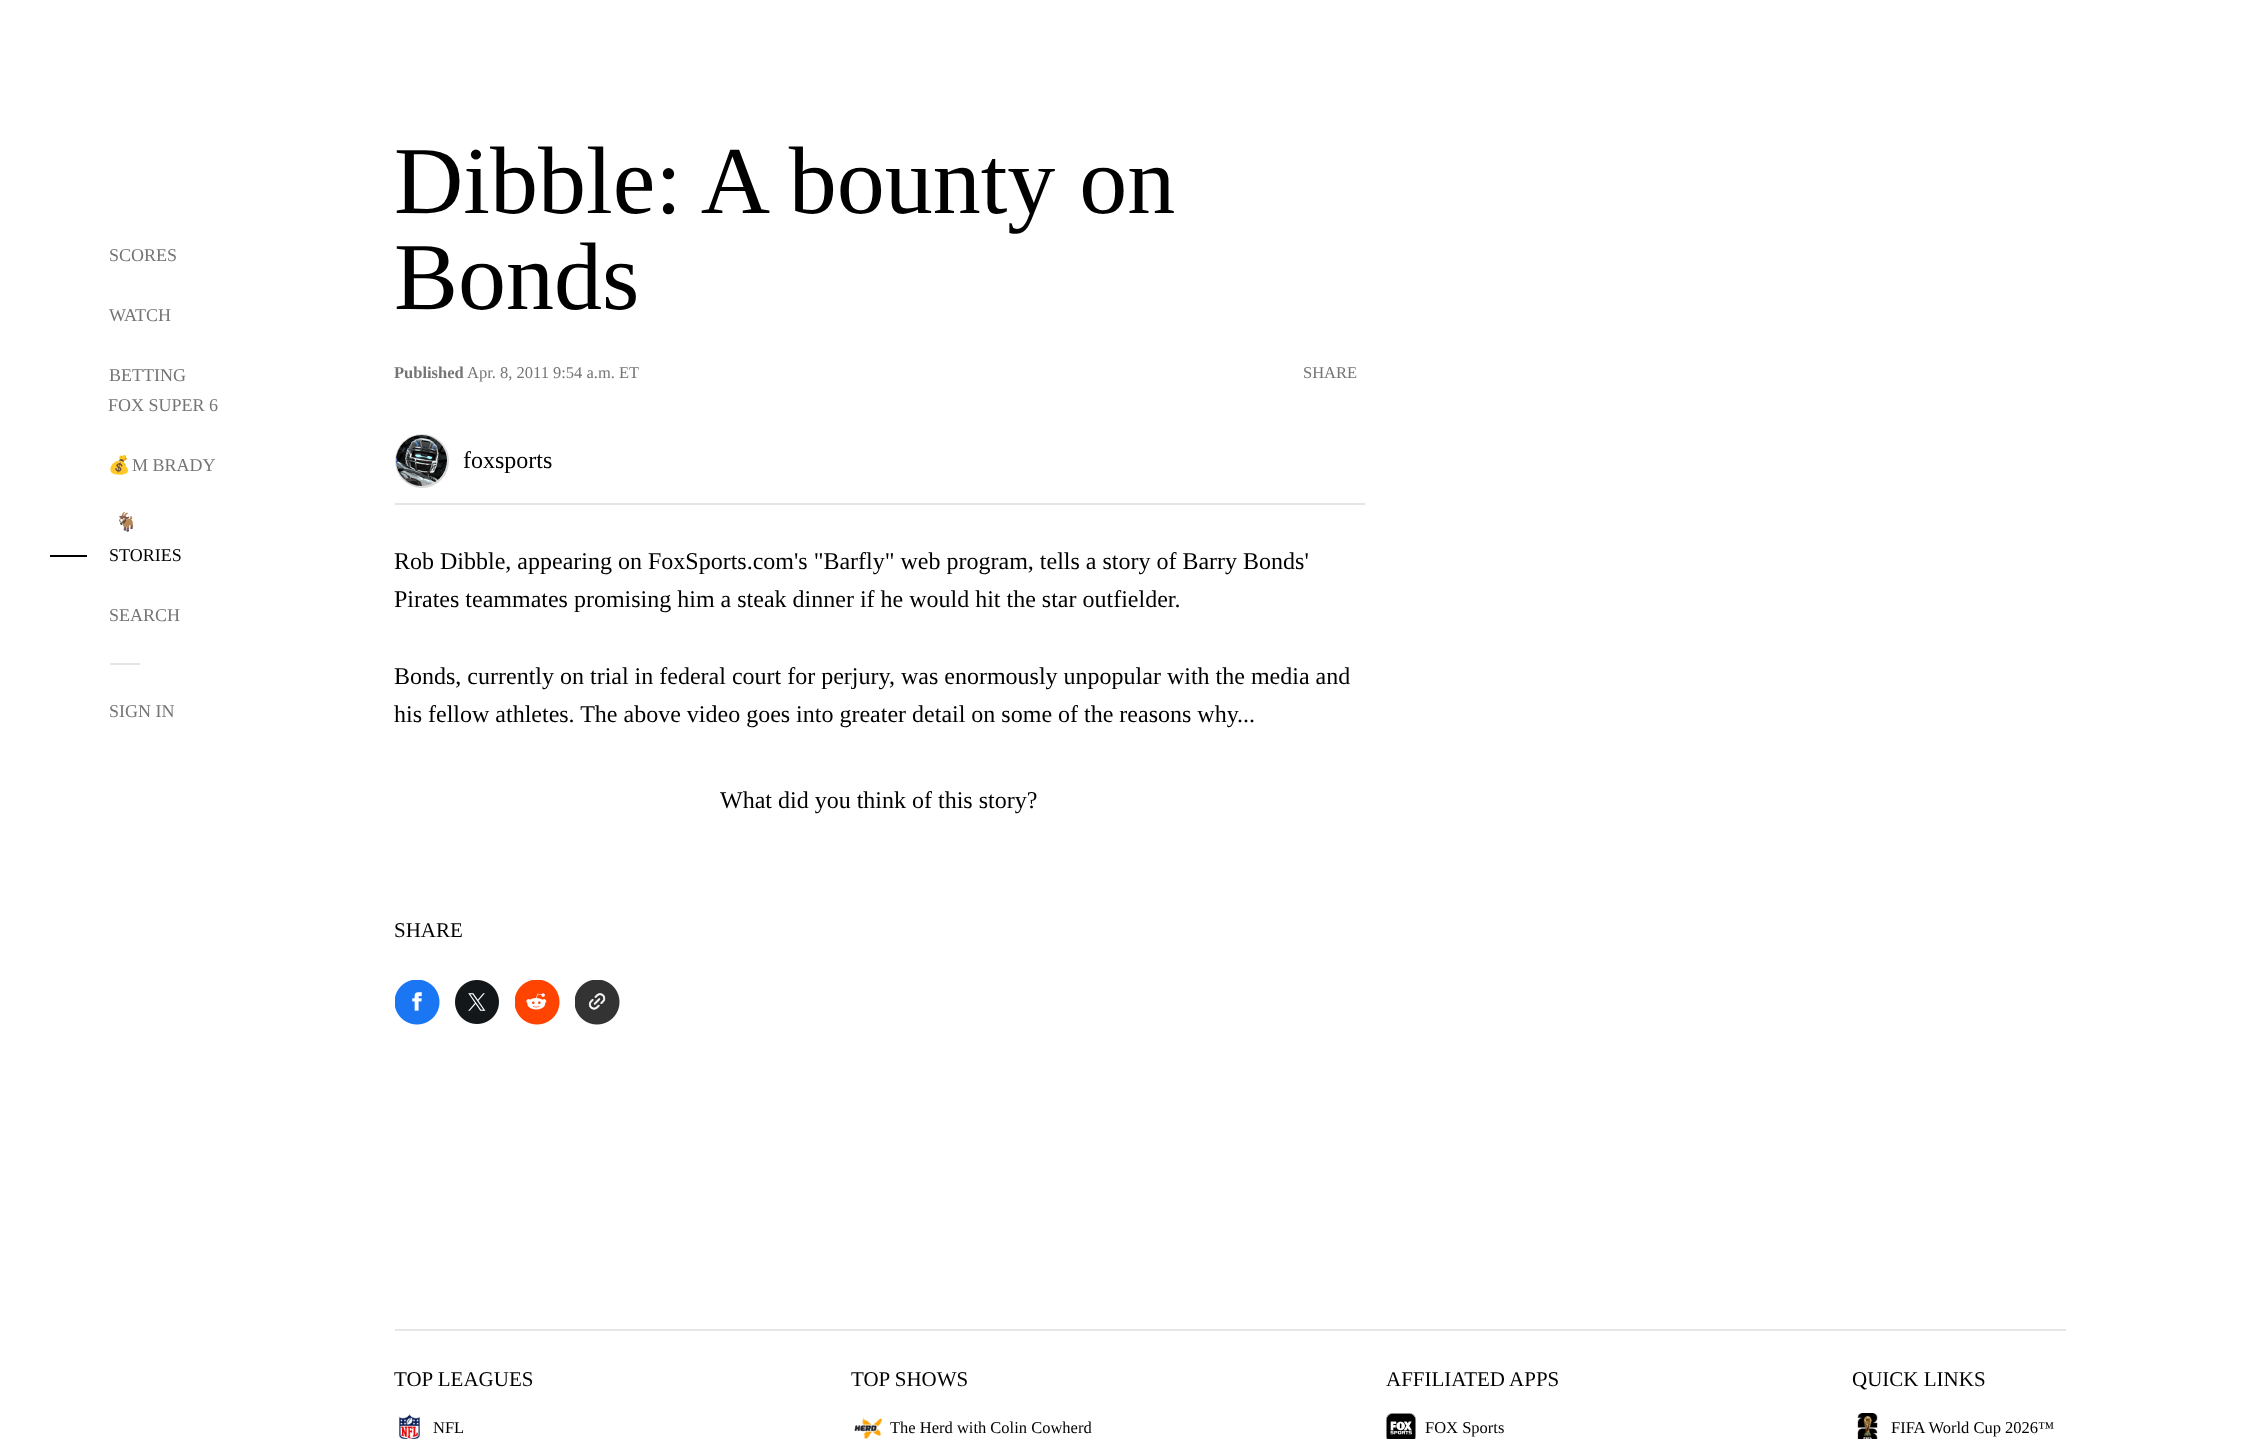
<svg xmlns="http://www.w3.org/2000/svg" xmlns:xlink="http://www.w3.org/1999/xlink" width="2263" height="1439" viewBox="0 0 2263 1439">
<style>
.cls-1{font:18px Liberation Serif;fill:#757575}
.cls-2{font:18px Noto Color Emoji;fill:#757575}
.cls-3{font:18px Noto Color Emoji;fill:#000000}
.cls-4{font:18px Liberation Serif;fill:#000000}
.cls-5{font:96px Liberation Serif;fill:#000000}
.cls-6{font:bold 16.5px Liberation Serif;fill:#757575}
.cls-7{font:16.5px Liberation Serif;fill:#757575}
.cls-8{font:24px Liberation Serif;fill:#000000}
.cls-9{font:21px Liberation Serif;fill:#000000}
.cls-10{font:16.5px Liberation Serif;fill:#000000}
</style>
<rect width="100%" height="100%" fill="#ffffff"/>
<rect fill="#000000" x="50" y="555" width="37" height="2"/>
<rect fill="#e5e5e5" x="110" y="663" width="30" height="2"/>
<rect fill="#e5e5e5" x="395" y="503" width="970" height="2"/>
<circle fill="none" stroke="#d9d9d9" stroke-width="2" cx="422" cy="461" r="26"/>
<image xlink:href="image0.png" x="396" y="435" width="51" height="51"/>
<image xlink:href="image1.png" x="395" y="980" width="45" height="45"/>
<image xlink:href="image2.png" x="455" y="980" width="44" height="44"/>
<image xlink:href="image3.png" x="515" y="980" width="45" height="45"/>
<image xlink:href="image4.png" x="575" y="980" width="45" height="45"/>
<rect fill="#e6e6e6" x="395" y="1329" width="1671" height="2"/>
<image xlink:href="image5.png" x="398" y="1413" width="23" height="26"/>
<image xlink:href="image6.png" x="854" y="1417" width="28" height="22"/>
<image xlink:href="image7.png" x="1386" y="1413" width="30" height="26"/>
<image xlink:href="image8.png" x="1857" y="1413" width="21" height="26"/>
<text class="cls-1" x="109" y="261">SCORES</text>
<text class="cls-1" x="109" y="321">WATCH</text>
<text class="cls-1" x="109" y="381">BETTING</text>
<text class="cls-1" x="108" y="411">FOX SUPER 6</text>
<text class="cls-2" x="108" y="471">💰</text>
<text class="cls-1" x="132" y="471">M BRADY</text>
<text class="cls-3" x="115" y="528">🐐</text>
<text class="cls-4" x="109" y="561">STORIES</text>
<text class="cls-1" x="109" y="621">SEARCH</text>
<text class="cls-1" x="109" y="717">SIGN IN</text>
<text class="cls-5"><tspan x="394" y="213">Dibble: A bounty on</tspan><tspan x="394" y="309">Bonds</tspan></text>
<text class="cls-6" x="394" y="378">Published</text>
<text class="cls-7" x="467" y="378">Apr. 8, 2011 9:54 a.m. ET</text>
<text class="cls-7" x="1303" y="378">SHARE</text>
<text class="cls-8" x="463" y="468">foxsports</text>
<text class="cls-8"><tspan x="394" y="569">Rob Dibble, appearing on FoxSports.com's "Barfly" web program, tells a story of Barry Bonds'</tspan><tspan x="394" y="607">Pirates teammates promising him a steak dinner if he would hit the star outfielder.</tspan></text>
<text class="cls-8"><tspan x="394" y="684">Bonds, currently on trial in federal court for perjury, was enormously unpopular with the media and</tspan><tspan x="394" y="722">his fellow athletes. The above video goes into greater detail on some of the reasons why...</tspan></text>
<text class="cls-8" x="720" y="808">What did you think of this story?</text>
<text class="cls-9" x="394" y="937">SHARE</text>
<text class="cls-9" x="394" y="1386">TOP LEAGUES</text>
<text class="cls-10" x="433" y="1433">NFL</text>
<text class="cls-9" x="851" y="1386">TOP SHOWS</text>
<text class="cls-10" x="890" y="1433">The Herd with Colin Cowherd</text>
<text class="cls-9" x="1386" y="1386">AFFILIATED APPS</text>
<text class="cls-10" x="1425" y="1433">FOX Sports</text>
<text class="cls-9" x="1852" y="1386">QUICK LINKS</text>
<text class="cls-10" x="1891" y="1433">FIFA World Cup 2026™</text>
</svg>
